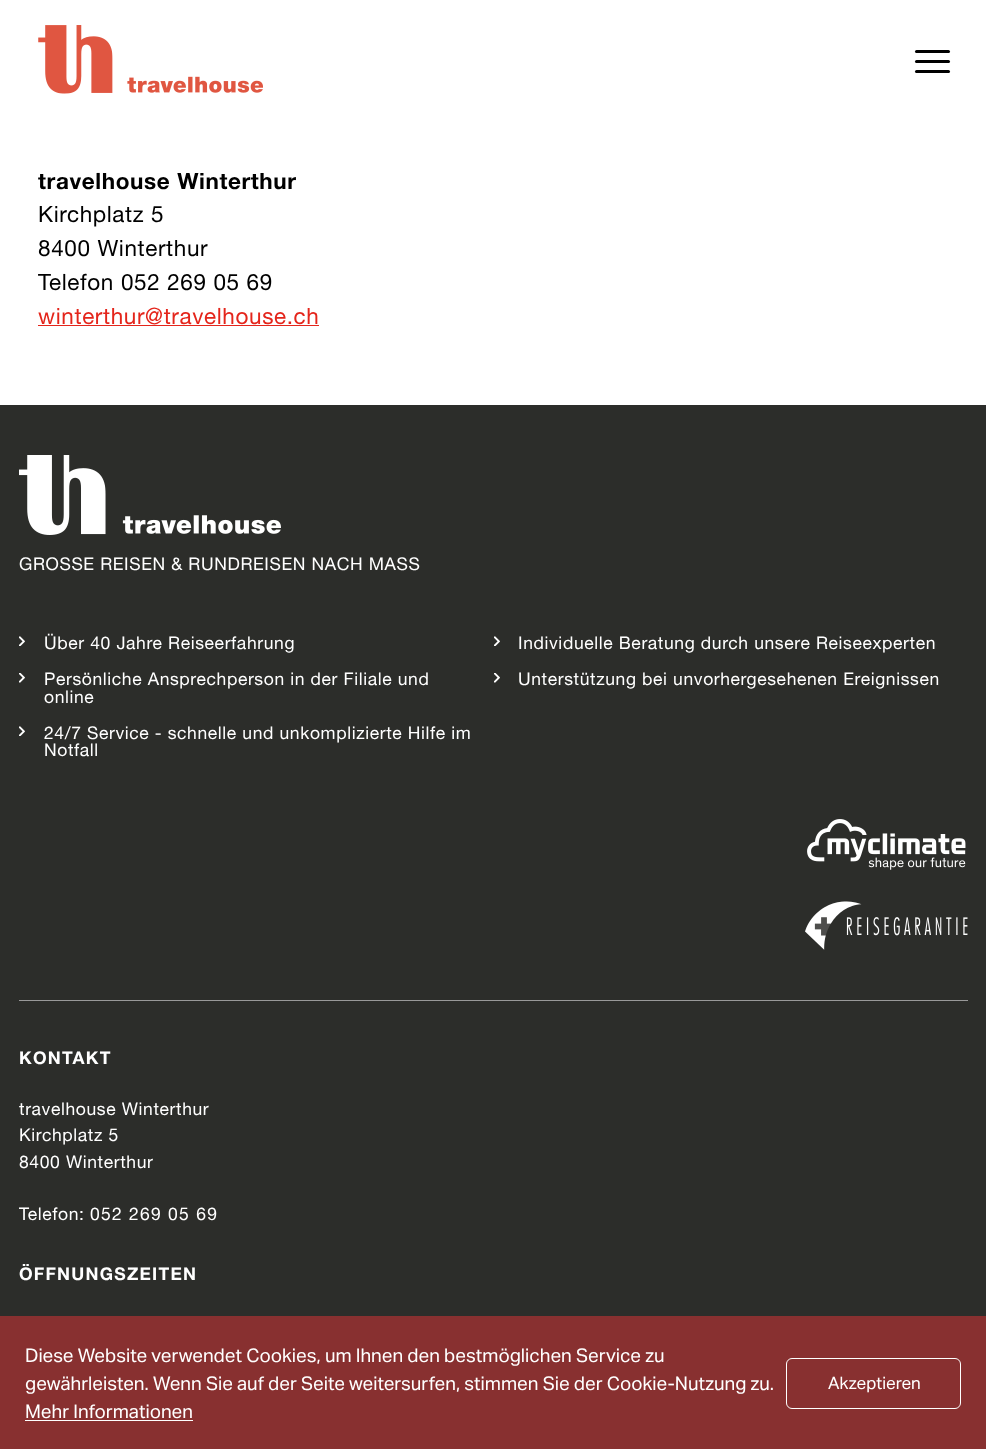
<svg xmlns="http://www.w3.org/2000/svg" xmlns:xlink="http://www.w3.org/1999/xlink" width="986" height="1449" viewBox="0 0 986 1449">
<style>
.cls-1{font:bold 22.5px Helvetica Neue;letter-spacing:0.62px;fill:#000000}
.cls-2{font:22.5px Helvetica Neue;letter-spacing:0.62px;fill:#000000}
.cls-3{font:22.5px Helvetica Neue;letter-spacing:0.62px;fill:#e4251b}
.cls-4{font:17.5px Helvetica Neue;letter-spacing:0.62px;fill:#ffffff}
.cls-5{font:bold 17.5px Helvetica Neue;letter-spacing:1.25px;fill:#ffffff}
.cls-6{font:17.5px Helvetica Neue;letter-spacing:1.25px;fill:#ffffff}
.cls-7{font:18.75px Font;fill:#ffffff}
.cls-8{font:17px Font;fill:#ffffff}
</style>
<rect width="100%" height="100%" fill="#ffffff"/>
<image xlink:href="image0.png" x="38" y="25" width="225" height="69"/>
<rect fill="#000000" x="915" y="50" width="35" height="3" rx="1.5"/>
<rect fill="#000000" x="915" y="60" width="35" height="3" rx="1.5"/>
<rect fill="#000000" x="915" y="70" width="35" height="3" rx="1.5"/>
<rect fill="#e4251b" x="38" y="325" width="281" height="1"/>
<rect fill="#2c2d2a" x="0" y="405" width="986" height="911"/>
<image xlink:href="image1.png" x="19" y="455" width="262" height="80"/>
<image xlink:href="image2.png" x="19" y="636" width="6" height="10"/>
<image xlink:href="image2.png" x="494" y="636" width="6" height="10"/>
<image xlink:href="image3.png" x="19" y="673" width="6" height="10"/>
<image xlink:href="image3.png" x="494" y="673" width="6" height="10"/>
<image xlink:href="image2.png" x="19" y="726" width="6" height="10"/>
<image xlink:href="image4.png" x="807" y="819" width="159" height="51"/>
<image xlink:href="image5.png" x="805" y="901" width="163" height="49"/>
<rect fill="#999999" x="19" y="1000" width="949" height="1"/>
<rect fill="#883030" x="0" y="1316" width="986" height="133"/>
<rect fill="#ffffff" x="25" y="1420" width="168" height="1"/>
<rect fill="none" stroke="#ffffff" x="786.5" y="1358.5" width="174" height="50" rx="5.5"/>
<text class="cls-1" x="38" y="189">travelhouse Winterthur</text>
<text class="cls-2"><tspan x="38" y="222">Kirchplatz 5</tspan><tspan x="38" y="256">8400 Winterthur</tspan><tspan x="38" y="290">Telefon 052 269 05 69</tspan></text>
<text class="cls-3" x="38" y="324">winterthur@travelhouse.ch</text>
<text class="cls-4" x="19" y="570">GROSSE REISEN &amp; RUNDREISEN NACH MASS</text>
<text class="cls-4" x="44" y="649">Über 40 Jahre Reiseerfahrung</text>
<text class="cls-4" x="518" y="649">Individuelle Beratung durch unsere Reiseexperten</text>
<text class="cls-4"><tspan x="44" y="685">Persönliche Ansprechperson in der Filiale und</tspan><tspan x="44" y="703">online</tspan></text>
<text class="cls-4" x="518" y="685">Unterstützung bei unvorhergesehenen Ereignissen</text>
<text class="cls-4"><tspan x="44" y="739">24/7 Service - schnelle und unkomplizierte Hilfe im</tspan><tspan x="44" y="756">Notfall</tspan></text>
<text class="cls-5" x="19" y="1064">KONTAKT</text>
<text class="cls-4"><tspan x="19" y="1115">travelhouse Winterthur</tspan><tspan x="19" y="1141">Kirchplatz 5</tspan><tspan x="19" y="1168">8400 Winterthur</tspan></text>
<text class="cls-4" x="19" y="1220">Telefon:</text>
<text class="cls-6" x="90" y="1220">052 269 05 69</text>
<text class="cls-5" x="19" y="1280">ÖFFNUNGSZEITEN</text>
<text class="cls-7"><tspan x="25" y="1362">Diese Website verwendet Cookies, um Ihnen den bestmöglichen Service zu</tspan><tspan x="25" y="1390">gewährleisten. Wenn Sie auf der Seite weitersurfen, stimmen Sie der Cookie-Nutzung zu.</tspan><tspan x="25" y="1418">Mehr Informationen</tspan></text>
<text class="cls-8" x="828" y="1389">Akzeptieren</text>
</svg>
